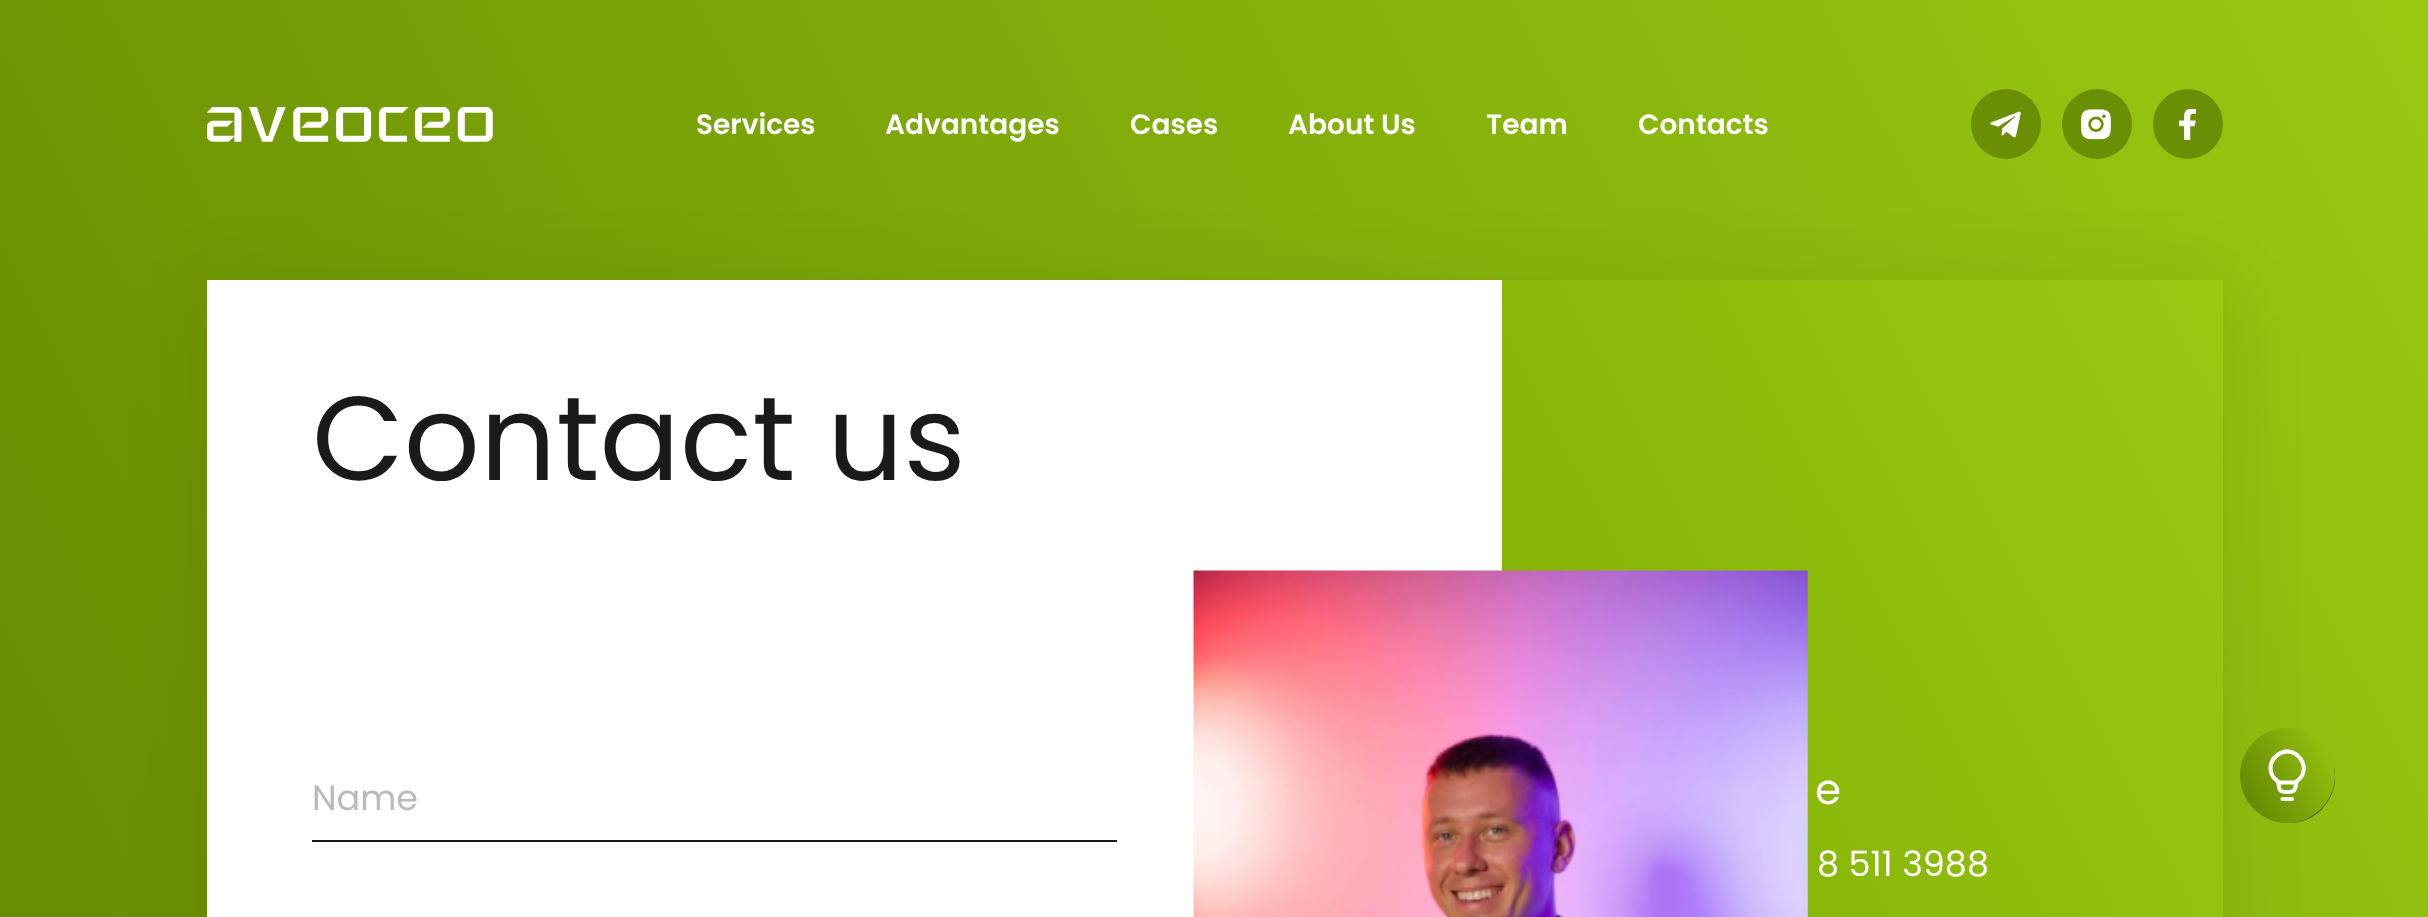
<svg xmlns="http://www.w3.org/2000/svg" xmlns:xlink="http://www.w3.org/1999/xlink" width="2428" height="917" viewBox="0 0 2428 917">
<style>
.cls-1{font:600 28px Poppins;fill:#ffffff}
.cls-2{font:119px Poppins;fill:#1a1a1a}
.cls-3{font:35px Poppins;fill:#bababa}
.cls-4{font:42px Poppins;fill:#ffffff}
.cls-5{font:35px Poppins;fill:#ffffff}
</style>
<defs>
<linearGradient id="g1" gradientUnits="userSpaceOnUse" x1="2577" y1="285" x2="-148" y2="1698"><stop offset="0" stop-color="#99c911"/><stop offset="0.99" stop-color="#5f8100"/></linearGradient>
<linearGradient id="g2" gradientUnits="userSpaceOnUse" x1="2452" y1="723" x2="1272" y2="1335"><stop offset="0" stop-color="#99c911"/><stop offset="0.99" stop-color="#7aa501"/></linearGradient>
<linearGradient id="g3" gradientUnits="userSpaceOnUse" x1="2344" y1="746" x2="2231" y2="805"><stop offset="0" stop-color="#99c911"/><stop offset="0.99" stop-color="#5f8100"/></linearGradient>
</defs>
<rect width="100%" height="100%" fill="#ffffff"/>
<rect fill="url(#g1)" x="0" y="0" width="2428" height="917"/>
<image xlink:href="image0.png" x="207" y="107" width="286" height="35"/>
<circle fill="#6b8f04" cx="2006" cy="124" r="35"/>
<image xlink:href="image1.png" x="1990" y="111" width="31" height="27"/>
<circle fill="#6b8f04" cx="2097" cy="124" r="35"/>
<image xlink:href="image2.png" x="2081" y="109" width="30" height="31"/>
<circle fill="#6b8f04" cx="2188" cy="124" r="35"/>
<image xlink:href="image3.png" x="2179" y="109" width="17" height="31"/>
<rect fill="#000000" fill-opacity="0.08" filter="blur(42px)" x="207" y="287" width="2016" height="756"/>
<rect fill="#ffffff" x="207" y="280" width="1295" height="637"/>
<rect fill="#1a1a1a" x="312" y="840" width="805" height="2"/>
<rect fill="url(#g2)" x="1502" y="280" width="721" height="637"/>
<image xlink:href="image4.png" x="1193" y="570" width="615" height="347"/>
<circle fill="#1a1a1a" cx="2288.5" cy="776.5" r="46.5"/>
<circle fill="url(#g3)" cx="2287.5" cy="775.5" r="47.5"/>
<path fill="none" stroke="#ffffff" stroke-width="4.1" stroke-linecap="round" stroke-linejoin="round" d="M2278 782.5H2296.5M2282.5 799H2292ZM2270.5 768C2270.5 763 2273 758.5 2277 755.5C2294.5 741 2315 769 2296.5 781.5C2295 789.5 2296 792 2287 792C2278.5 792 2279.5 789.5 2278 781.5C2273.5 778.5 2270.5 773.5 2270.5 768Z"/>
<text class="cls-1" x="696" y="134">Services</text>
<text class="cls-1" x="885" y="134">Advantages</text>
<text class="cls-1" x="1130" y="134">Cases</text>
<text class="cls-1" x="1288" y="134">About Us</text>
<text class="cls-1" x="1486" y="134">Team</text>
<text class="cls-1" x="1638" y="134">Contacts</text>
<text class="cls-2" x="312" y="480">Contact us</text>
<text class="cls-3" x="312" y="810">Name</text>
<text class="cls-4" x="1815" y="804">e</text>
<text class="cls-5" x="1817" y="876">8 511 3988</text>
</svg>
